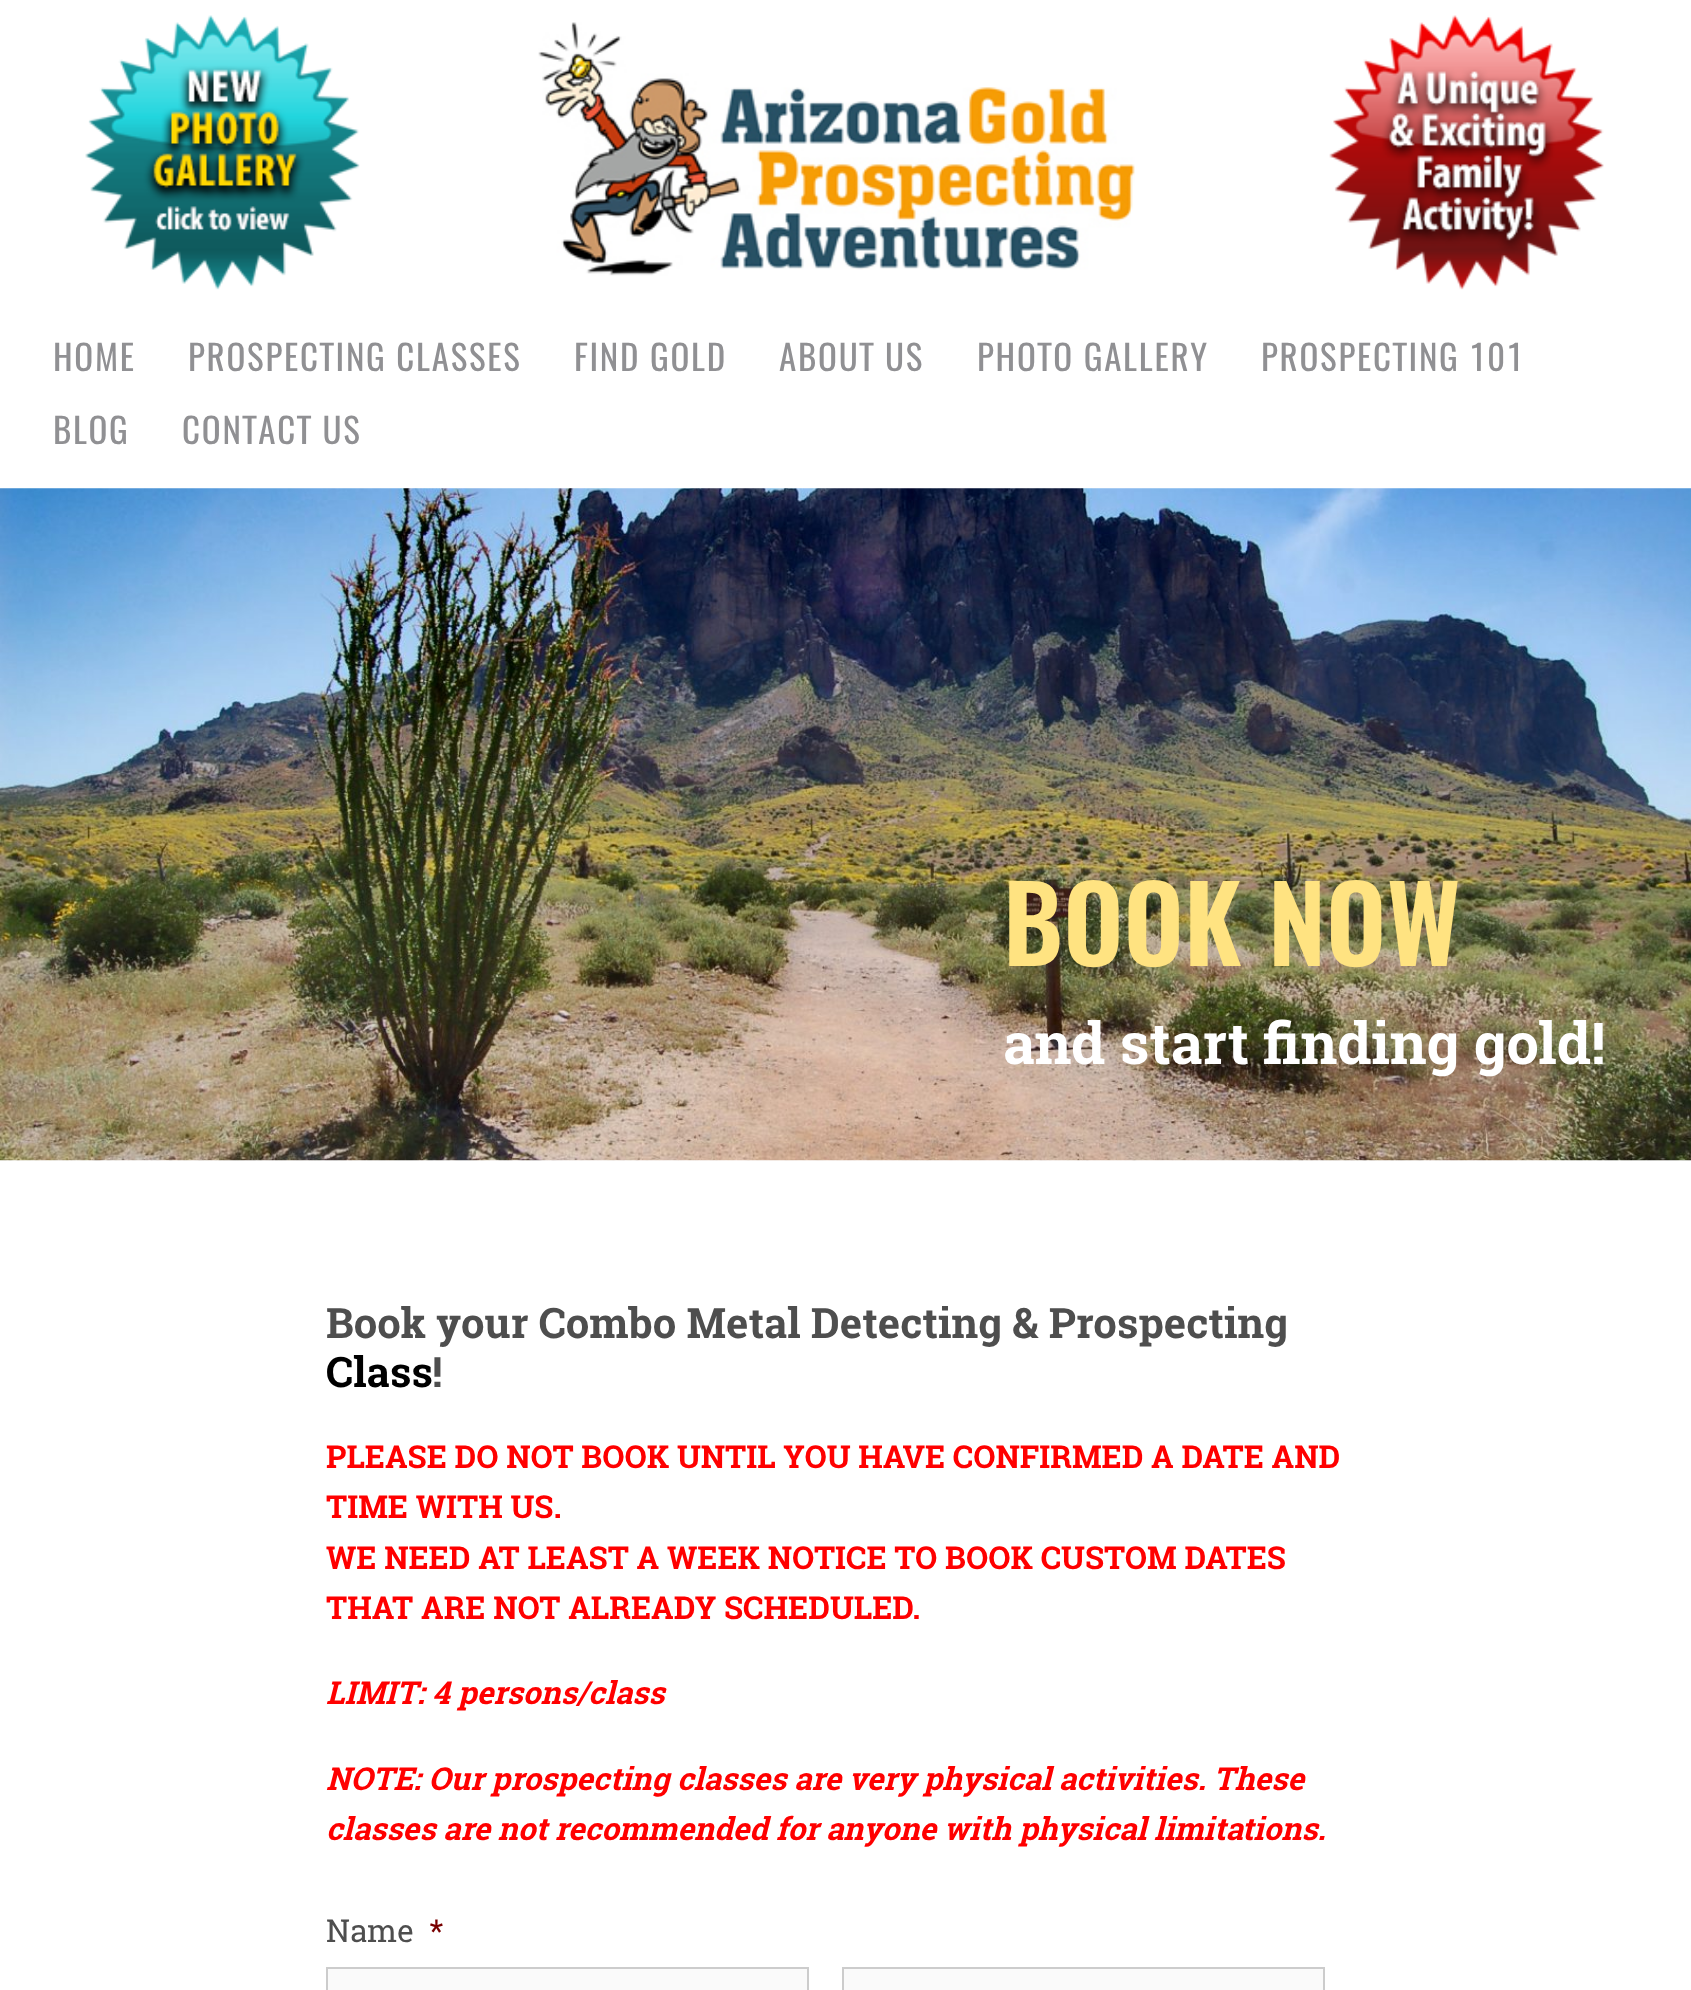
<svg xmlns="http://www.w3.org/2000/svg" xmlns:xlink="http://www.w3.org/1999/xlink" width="1691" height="1990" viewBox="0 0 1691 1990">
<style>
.cls-1{font:35px Oswald;letter-spacing:1.75px;fill:#909093}
.cls-2{font:600 105px Oswald;fill:#ffe381}
.cls-3{font:bold 57.75px Roboto Slab;fill:#ffffff}
.cls-4{font:bold 42px Roboto Slab;fill:#4e4e4e}
.cls-5{font:bold 42px Roboto Slab;fill:#000000}
.cls-6{font:bold 31.5px Roboto Slab;fill:#ff0000}
.cls-7{font:italic bold 31.5px Roboto Slab;fill:#ff0000}
.cls-8{font:31.5px Roboto Slab;fill:#4e4e4e}
.cls-9{font:31.5px Roboto Slab;fill:#790000}
</style>
<rect width="100%" height="100%" fill="#ffffff"/>
<image xlink:href="image0.png" x="85" y="15" width="275" height="275"/>
<image xlink:href="image1.png" x="1329" y="15" width="275" height="275"/>
<image xlink:href="image2.png" x="538" y="22" width="597" height="254"/>
<image xlink:href="image3.png" x="0" y="488" width="1691" height="673"/>
<rect fill="#fafafa" stroke="#cccccc" stroke-width="2" x="327" y="1968" width="481" height="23"/>
<rect fill="#fafafa" stroke="#cccccc" stroke-width="2" x="843" y="1968" width="481" height="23"/>
<text class="cls-1" x="53" y="371">HOME</text>
<text class="cls-1" x="188" y="371">PROSPECTING CLASSES</text>
<text class="cls-1" x="574" y="371">FIND GOLD</text>
<text class="cls-1" x="779" y="371">ABOUT US</text>
<text class="cls-1" x="977" y="371">PHOTO GALLERY</text>
<text class="cls-1" x="1261" y="371">PROSPECTING 101</text>
<text class="cls-1" x="53" y="444">BLOG</text>
<text class="cls-1" x="182" y="444">CONTACT US</text>
<text class="cls-2" x="1003" y="966">BOOK NOW</text>
<text class="cls-3" x="1003" y="1064">and start finding gold!</text>
<text class="cls-4" x="326" y="1338">Book your Combo Metal Detecting &amp; Prospecting</text>
<text class="cls-5" x="326" y="1387">Class</text>
<text class="cls-4" x="432" y="1387">!</text>
<text class="cls-6"><tspan x="326" y="1468">PLEASE DO NOT BOOK UNTIL YOU HAVE CONFIRMED A DATE AND</tspan><tspan x="326" y="1518">TIME WITH US.</tspan><tspan x="326" y="1569">WE NEED AT LEAST A WEEK NOTICE TO BOOK CUSTOM DATES</tspan><tspan x="326" y="1619">THAT ARE NOT ALREADY SCHEDULED.</tspan></text>
<text class="cls-7" x="326" y="1704">LIMIT: 4 persons/class</text>
<text class="cls-7"><tspan x="326" y="1790">NOTE: Our prospecting classes are very physical activities. These</tspan><tspan x="326" y="1840">classes are not recommended for anyone with physical limitations.</tspan></text>
<text class="cls-8" x="326" y="1942">Name</text>
<text class="cls-9" x="429" y="1942">*</text>
</svg>
